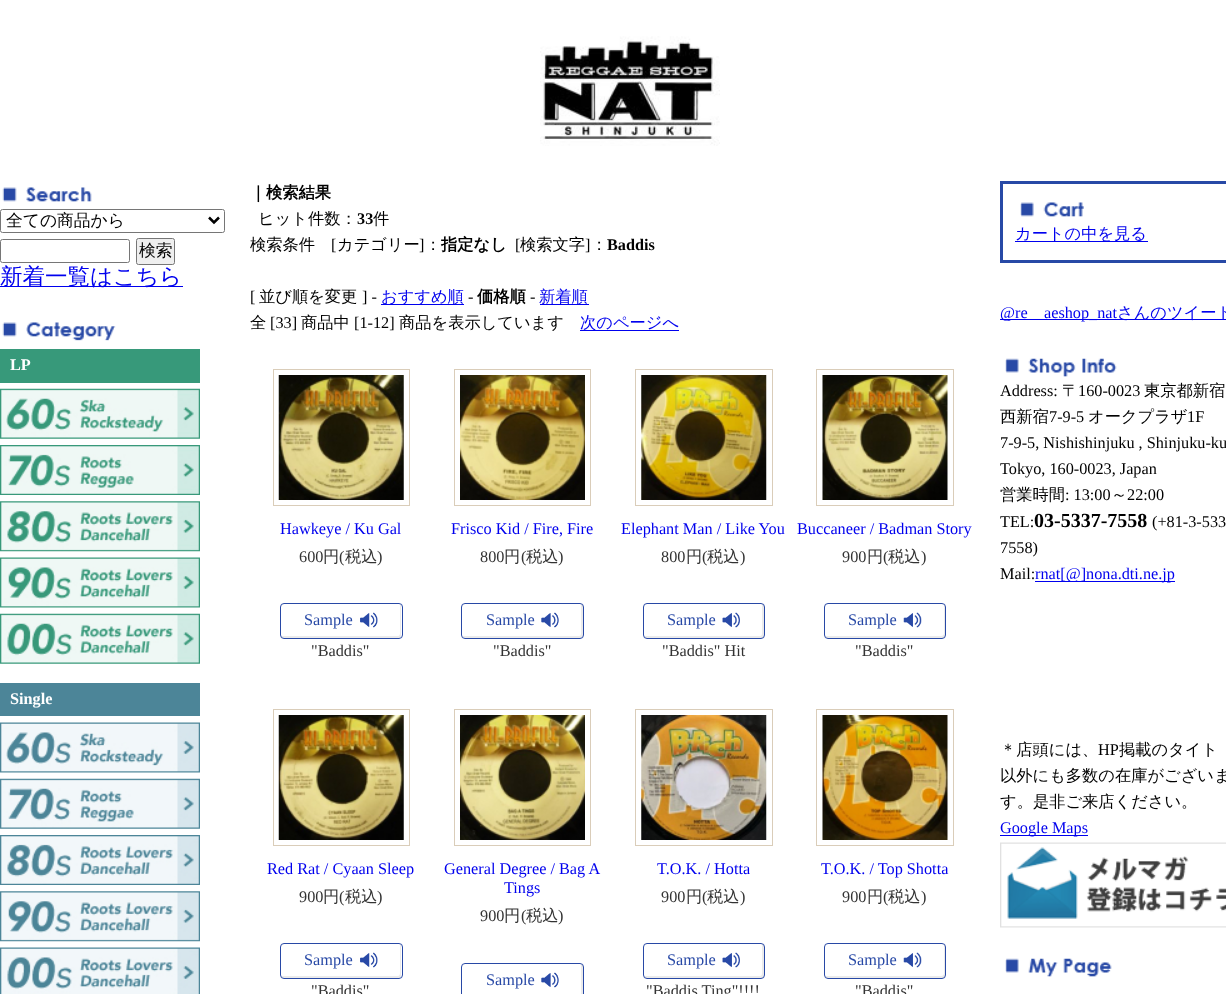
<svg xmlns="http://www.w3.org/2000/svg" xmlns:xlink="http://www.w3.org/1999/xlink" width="1226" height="994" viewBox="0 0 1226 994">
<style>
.cls-1{font:500 16.75px WenQuanYi Zen Hei;fill:#000000}
.cls-2{font:500 22.5px WenQuanYi Zen Hei;fill:#0000ee}
.cls-3{font:bold 16.25px Liberation Serif;fill:#ffffff}
.cls-4{font:bold 16.25px WenQuanYi Zen Hei;fill:#000000}
.cls-5{font:500 16.25px WenQuanYi Zen Hei;fill:#000000}
.cls-6{font:bold 16.25px Liberation Serif;fill:#000000}
.cls-7{font:16.25px Liberation Serif;fill:#000000}
.cls-8{font:500 16.25px WenQuanYi Zen Hei;fill:#0000ee}
.cls-9{font:16.25px Liberation Serif;fill:#0000ee}
.cls-10{font:16.25px Liberation Serif;fill:#333333}
.cls-11{font:500 16.25px WenQuanYi Zen Hei;fill:#333333}
.cls-12{font:16.25px Liberation Serif;fill:#2849a6}
.cls-13{font:bold 20px Liberation Serif;fill:#000000}
</style>
<rect width="100%" height="100%" fill="#ffffff"/>
<image xlink:href="image0.png" x="540" y="36" width="180" height="110"/>
<image xlink:href="image1.png" x="2" y="187" width="90" height="15"/>
<rect fill="none" stroke="#767676" x="0.5" y="209.5" width="224" height="23" rx="2"/>
<path fill="none" stroke="#000000" stroke-width="2.5" d="M209 217.5L214 222.5L219 217.5"/>
<rect fill="none" stroke="#767676" x="0.5" y="239.5" width="129" height="23" rx="2"/>
<rect fill="#0000ee" x="0" y="286" width="183" height="1"/>
<image xlink:href="image2.png" x="2" y="322" width="114" height="19"/>
<rect fill="#37997a" x="0" y="349" width="200" height="34"/>
<image xlink:href="image3.png" x="0" y="388" width="200" height="51"/>
<image xlink:href="image4.png" x="0" y="445" width="200" height="50"/>
<image xlink:href="image5.png" x="0" y="501" width="200" height="51"/>
<image xlink:href="image6.png" x="0" y="557" width="200" height="51"/>
<image xlink:href="image7.png" x="0" y="613" width="200" height="51"/>
<rect fill="#4c8598" x="0" y="683" width="200" height="33"/>
<image xlink:href="image8.png" x="0" y="722" width="200" height="51"/>
<image xlink:href="image9.png" x="0" y="778" width="200" height="51"/>
<image xlink:href="image10.png" x="0" y="835" width="200" height="50"/>
<image xlink:href="image11.png" x="0" y="891" width="200" height="51"/>
<image xlink:href="image12.png" x="0" y="947" width="200" height="47"/>
<rect fill="#0000ee" x="381" y="304" width="83" height="1"/>
<rect fill="#0000ee" x="540" y="304" width="49" height="1"/>
<rect fill="#0000ee" x="580" y="330" width="99" height="1"/>
<rect fill="none" stroke="#dacdb9" x="273.5" y="369.5" width="136" height="136"/>
<image xlink:href="image13.png" x="278" y="375" width="126" height="125"/>
<path fill="#ebebeb" d="M281 636C281 637 282 638 284 638H398C400 638 401 637 401 636V606C401 606 401 605 400 604V629C400 630 401 636 398 636Z"/>
<rect fill="none" stroke="#2849a6" x="280.5" y="603.5" width="122" height="35" rx="3.5"/>
<image xlink:href="image14.png" x="360" y="612" width="18" height="16"/>
<rect fill="none" stroke="#dacdb9" x="454.5" y="369.5" width="136" height="136"/>
<image xlink:href="image15.png" x="460" y="375" width="125" height="125"/>
<path fill="#ebebeb" d="M463 636C463 637 464 638 466 638H580C582 638 583 637 583 636V606C583 605 582 604 581 604V629C581 630 582 636 579 636Z"/>
<rect fill="none" stroke="#2849a6" x="461.5" y="603.5" width="122" height="35" rx="3.5"/>
<image xlink:href="image16.png" x="541" y="612" width="18" height="16"/>
<rect fill="none" stroke="#dacdb9" x="635.5" y="369.5" width="137" height="136"/>
<image xlink:href="image17.png" x="641" y="375" width="126" height="125"/>
<path fill="#ebebeb" d="M644 636C644 637 645 638 646 638H762C763 638 764 637 764 636V606C764 605 763 604 762 604V629C762 630 763 636 760 636Z"/>
<rect fill="none" stroke="#2849a6" x="643.5" y="603.5" width="121" height="35" rx="3.5"/>
<image xlink:href="image18.png" x="722" y="612" width="18" height="16"/>
<rect fill="none" stroke="#dacdb9" x="816.5" y="369.5" width="137" height="136"/>
<image xlink:href="image19.png" x="822" y="375" width="126" height="125"/>
<path fill="#ebebeb" d="M825 636C825 637 826 638 828 638H942C944 638 945 637 945 636V606C945 606 945 605 944 604V629C944 632 945 636 941 636Z"/>
<rect fill="none" stroke="#2849a6" x="824.5" y="603.5" width="121" height="35" rx="3.5"/>
<image xlink:href="image20.png" x="903" y="612" width="19" height="16"/>
<rect fill="none" stroke="#dacdb9" x="273.5" y="709.5" width="136" height="136"/>
<image xlink:href="image21.png" x="278" y="715" width="126" height="125"/>
<path fill="#ebebeb" d="M281 976C281 977 282 978 284 978H398C400 978 401 977 401 976V946C401 946 401 945 400 944V969C400 970 401 976 398 976Z"/>
<rect fill="none" stroke="#2849a6" x="280.5" y="943.5" width="122" height="35" rx="3.5"/>
<image xlink:href="image14.png" x="360" y="952" width="18" height="16"/>
<rect fill="none" stroke="#dacdb9" x="454.5" y="709.5" width="136" height="136"/>
<image xlink:href="image22.png" x="460" y="715" width="125" height="125"/>
<path fill="#ebebeb" d="M463 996C463 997 464 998 466 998H580C582 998 583 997 583 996V966C583 965 582 964 581 964V989C581 990 582 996 579 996Z"/>
<rect fill="none" stroke="#2849a6" x="461.5" y="963.5" width="122" height="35" rx="3.5"/>
<image xlink:href="image16.png" x="541" y="972" width="18" height="16"/>
<rect fill="none" stroke="#dacdb9" x="635.5" y="709.5" width="137" height="136"/>
<image xlink:href="image23.png" x="641" y="715" width="126" height="125"/>
<path fill="#ebebeb" d="M644 976C644 977 645 978 646 978H762C763 978 764 977 764 976V946C764 945 763 944 762 944V969C762 970 763 976 760 976Z"/>
<rect fill="none" stroke="#2849a6" x="643.5" y="943.5" width="121" height="35" rx="3.5"/>
<image xlink:href="image18.png" x="722" y="952" width="18" height="16"/>
<rect fill="none" stroke="#dacdb9" x="816.5" y="709.5" width="137" height="136"/>
<image xlink:href="image24.png" x="822" y="715" width="126" height="125"/>
<path fill="#ebebeb" d="M825 976C825 977 826 978 828 978H942C944 978 945 977 945 976V946C945 946 945 945 944 944V969C944 972 945 976 941 976Z"/>
<rect fill="none" stroke="#2849a6" x="824.5" y="943.5" width="121" height="35" rx="3.5"/>
<image xlink:href="image20.png" x="903" y="952" width="19" height="16"/>
<rect fill="none" stroke="#2849a6" stroke-width="3" x="1001.5" y="182.5" width="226" height="79"/>
<image xlink:href="image25.png" x="1020" y="202" width="64" height="15"/>
<rect fill="#0000ee" x="1015" y="241" width="133" height="1"/>
<rect fill="#0000ee" x="1000" y="319" width="226" height="1"/>
<image xlink:href="image26.png" x="1005" y="358" width="112" height="19"/>
<rect fill="#0000ee" x="1035" y="581" width="140" height="1"/>
<rect fill="#0000ee" x="1000" y="835" width="88" height="1"/>
<image xlink:href="image27.png" x="1000" y="842" width="226" height="86"/>
<image xlink:href="image28.png" x="1005" y="958" width="107" height="19"/>
<text class="cls-1" x="6" y="226">全ての商品から</text>
<text class="cls-2" x="0" y="284">新着一覧はこちら</text>
<rect fill="#efefef" stroke="#767676" x="136.5" y="238.5" width="38" height="26" rx="2"/>
<text class="cls-1" x="139" y="256">検索</text>
<text class="cls-3" x="10" y="370">LP</text>
<text class="cls-3" x="10" y="704">Single</text>
<text class="cls-4" x="250" y="198">｜検索結果</text>
<text class="cls-5" x="258" y="224">ヒット件数：</text>
<text class="cls-6" x="357" y="224">33</text>
<text class="cls-5" x="373" y="224">件</text>
<text class="cls-5" x="250" y="250">検索条件</text>
<text class="cls-7" x="331" y="250">[</text>
<text class="cls-5" x="337" y="250">カテゴリー</text>
<text class="cls-7" x="419" y="250">]</text>
<text class="cls-5" x="425" y="250">：</text>
<text class="cls-4" x="441" y="250">指定なし</text>
<text class="cls-7" x="515" y="250">[</text>
<text class="cls-5" x="520" y="250">検索文字</text>
<text class="cls-7" x="585" y="250">]</text>
<text class="cls-5" x="591" y="250">：</text>
<text class="cls-6" x="607" y="250">Baddis</text>
<text class="cls-7" x="250" y="302">[</text>
<text class="cls-5" x="259" y="302">並び順を変更</text>
<text class="cls-7" x="362" y="302">] -</text>
<text class="cls-8" x="381" y="302">おすすめ順</text>
<text class="cls-7" x="468" y="302">-</text>
<text class="cls-4" x="477" y="302">価格順</text>
<text class="cls-7" x="530" y="302">-</text>
<text class="cls-8" x="539" y="302">新着順</text>
<text class="cls-5" x="250" y="328">全</text>
<text class="cls-7" x="270" y="328">[33]</text>
<text class="cls-5" x="301" y="328">商品中</text>
<text class="cls-7" x="354" y="328">[1-12]</text>
<text class="cls-5" x="399" y="328">商品を表示しています</text>
<text class="cls-8" x="580" y="328">次のページへ</text>
<text class="cls-9" x="280" y="534">Hawkeye / Ku Gal</text>
<text class="cls-10" x="299" y="562">600</text>
<text class="cls-11" x="323" y="562">円</text>
<text class="cls-10" x="339" y="562">(</text>
<text class="cls-11" x="345" y="562">税込</text>
<text class="cls-10" x="377" y="562">)</text>
<text class="cls-12" x="304" y="625">Sample</text>
<text class="cls-10" x="311" y="656">"Baddis"</text>
<text class="cls-9" x="451" y="534">Frisco Kid / Fire, Fire</text>
<text class="cls-10" x="480" y="562">800</text>
<text class="cls-11" x="504" y="562">円</text>
<text class="cls-10" x="521" y="562">(</text>
<text class="cls-11" x="526" y="562">税込</text>
<text class="cls-10" x="558" y="562">)</text>
<text class="cls-12" x="486" y="625">Sample</text>
<text class="cls-10" x="493" y="656">"Baddis"</text>
<text class="cls-9" x="621" y="534">Elephant Man / Like You</text>
<text class="cls-10" x="661" y="562">800</text>
<text class="cls-11" x="686" y="562">円</text>
<text class="cls-10" x="702" y="562">(</text>
<text class="cls-11" x="707" y="562">税込</text>
<text class="cls-10" x="740" y="562">)</text>
<text class="cls-12" x="667" y="625">Sample</text>
<text class="cls-10" x="662" y="656">"Baddis" Hit</text>
<text class="cls-9" x="797" y="534">Buccaneer / Badman Story</text>
<text class="cls-10" x="842" y="562">900</text>
<text class="cls-11" x="867" y="562">円</text>
<text class="cls-10" x="883" y="562">(</text>
<text class="cls-11" x="888" y="562">税込</text>
<text class="cls-10" x="921" y="562">)</text>
<text class="cls-12" x="848" y="625">Sample</text>
<text class="cls-10" x="855" y="656">"Baddis"</text>
<text class="cls-9" x="267" y="874">Red Rat / Cyaan Sleep</text>
<text class="cls-10" x="299" y="902">900</text>
<text class="cls-11" x="323" y="902">円</text>
<text class="cls-10" x="339" y="902">(</text>
<text class="cls-11" x="345" y="902">税込</text>
<text class="cls-10" x="377" y="902">)</text>
<text class="cls-12" x="304" y="965">Sample</text>
<text class="cls-10" x="311" y="996">"Baddis"</text>
<text class="cls-9" x="444" y="874">General Degree / Bag A</text>
<text class="cls-9" x="504" y="893">Tings</text>
<text class="cls-10" x="480" y="921">900</text>
<text class="cls-11" x="504" y="921">円</text>
<text class="cls-10" x="521" y="921">(</text>
<text class="cls-11" x="526" y="921">税込</text>
<text class="cls-10" x="558" y="921">)</text>
<text class="cls-12" x="486" y="985">Sample</text>
<text class="cls-9" x="657" y="874">T.O.K. / Hotta</text>
<text class="cls-10" x="661" y="902">900</text>
<text class="cls-11" x="686" y="902">円</text>
<text class="cls-10" x="702" y="902">(</text>
<text class="cls-11" x="707" y="902">税込</text>
<text class="cls-10" x="740" y="902">)</text>
<text class="cls-12" x="667" y="965">Sample</text>
<text class="cls-10" x="646" y="996">"Baddis Ting"!!!!</text>
<text class="cls-9" x="821" y="874">T.O.K. / Top Shotta</text>
<text class="cls-10" x="842" y="902">900</text>
<text class="cls-11" x="867" y="902">円</text>
<text class="cls-10" x="883" y="902">(</text>
<text class="cls-11" x="888" y="902">税込</text>
<text class="cls-10" x="921" y="902">)</text>
<text class="cls-12" x="848" y="965">Sample</text>
<text class="cls-10" x="855" y="996">"Baddis"</text>
<text class="cls-8" x="1015" y="239">カートの中を見る</text>
<text class="cls-9" x="1000" y="318">@re</text>
<text class="cls-9" x="1044" y="318">aeshop_nat</text>
<text class="cls-8" x="1117" y="318">さんのツイート</text>
<text class="cls-7" x="1000" y="396">Address:</text>
<text class="cls-5" x="1062" y="396">〒</text>
<text class="cls-7" x="1078" y="396">160-0023</text>
<text class="cls-5" x="1144" y="396">東京都新宿</text>
<text class="cls-5" x="1000" y="422">西新宿</text>
<text class="cls-7" x="1049" y="422">7-9-5</text>
<text class="cls-5" x="1088" y="422">オークプラザ</text>
<text class="cls-7" x="1187" y="422">1F</text>
<text class="cls-7"><tspan x="1000" y="448">7-9-5, Nishishinjuku , Shinjuku-ku</tspan><tspan x="1000" y="474">Tokyo, 160-0023, Japan</tspan></text>
<text class="cls-5" x="1000" y="500">営業時間</text>
<text class="cls-7" x="1065" y="500">: 13:00</text>
<text class="cls-5" x="1111" y="500">～</text>
<text class="cls-7" x="1127" y="500">22:00</text>
<text class="cls-7" x="1000" y="527">TEL:</text>
<text class="cls-13" x="1034" y="527">03-5337-7558</text>
<text class="cls-7" x="1152" y="527">(+81-3-533</text>
<text class="cls-7"><tspan x="1000" y="553">7558)</tspan><tspan x="1000" y="579">Mail:</tspan></text>
<text class="cls-9" x="1035" y="579">rnat[@]nona.dti.ne.jp</text>
<text class="cls-5" x="1000" y="755">＊店頭には、</text>
<text class="cls-7" x="1098" y="755">HP</text>
<text class="cls-5" x="1119" y="755">掲載のタイト</text>
<text class="cls-5"><tspan x="1000" y="781">以外にも多数の在庫がございま</tspan><tspan x="1000" y="807">す。是非ご来店ください。</tspan></text>
<text class="cls-9" x="1000" y="833">Google Maps</text>
</svg>
